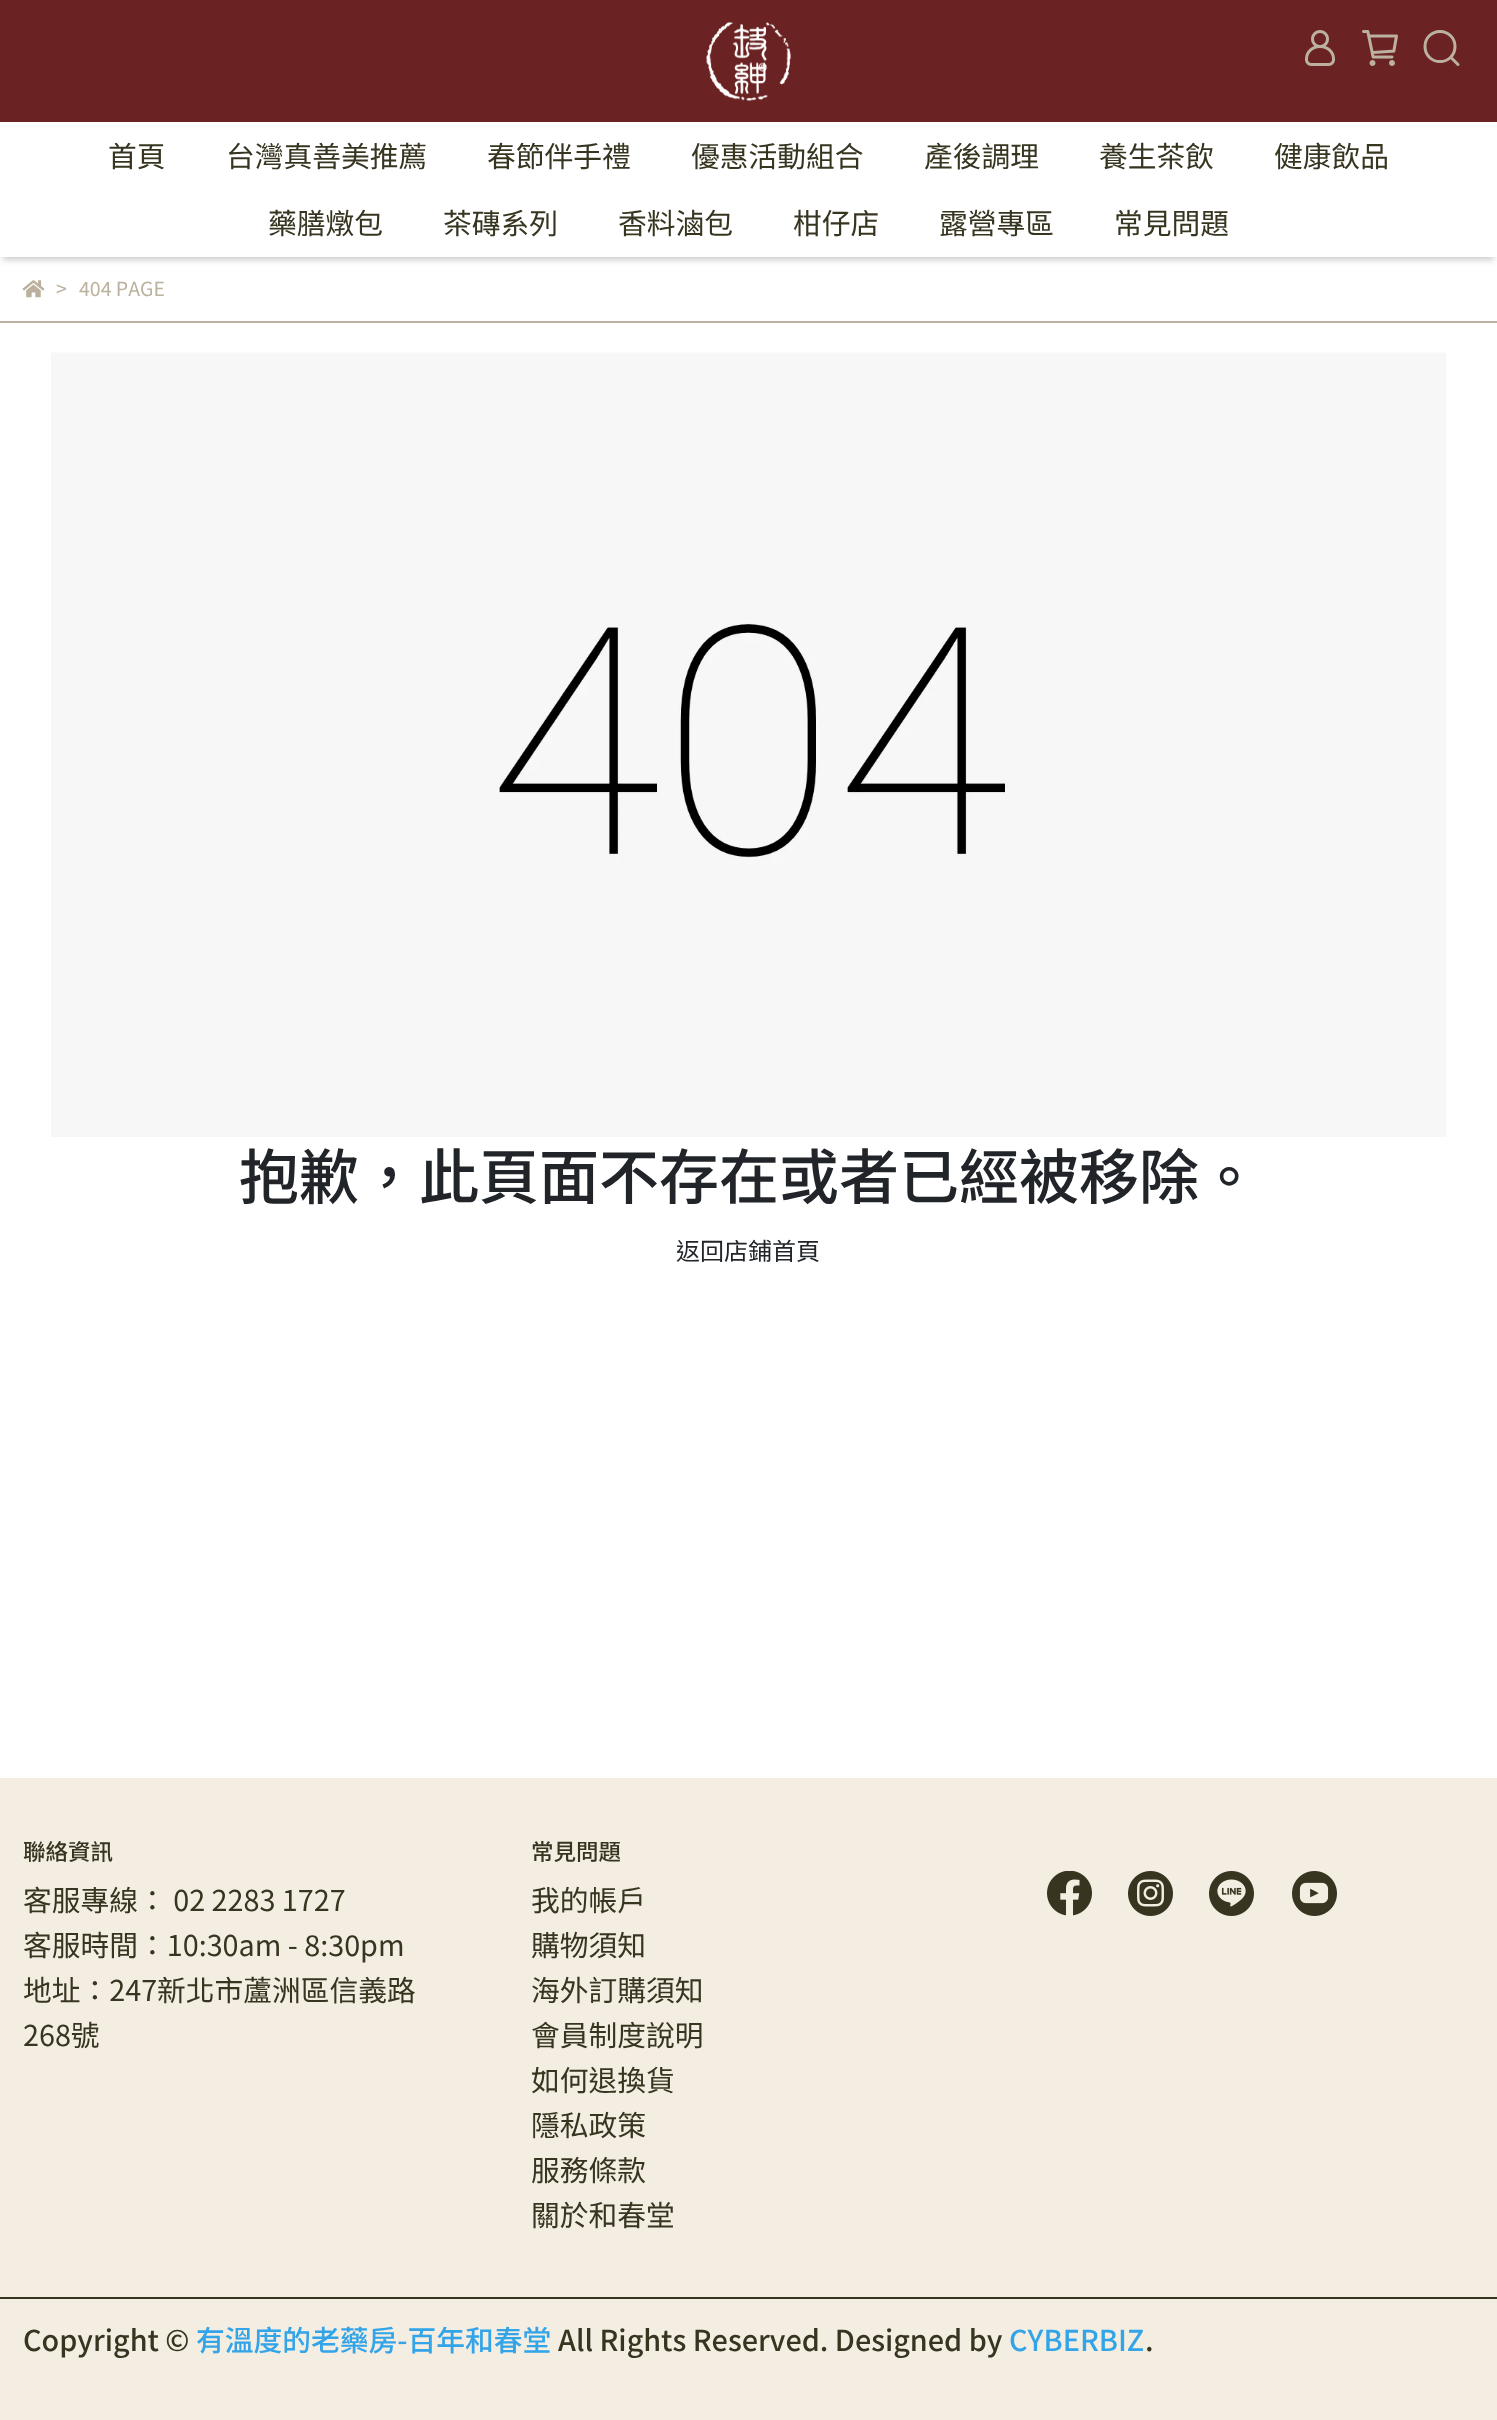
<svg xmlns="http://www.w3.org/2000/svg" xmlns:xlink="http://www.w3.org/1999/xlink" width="1497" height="2420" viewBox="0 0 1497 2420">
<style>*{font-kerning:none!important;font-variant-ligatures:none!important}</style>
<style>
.cls-1{font:28.75px Noto Sans TC;fill:#373420}
.cls-2{font:19.5px Noto Sans TC;fill:#bbb19e}
.cls-3{font:500 60px Noto Sans TC;fill:#212529}
.cls-4{font:24px Noto Sans TC;fill:#212529}
.cls-5{font:500 22.5px Noto Sans TC;fill:#373420}
.cls-6{font:500 28.75px Noto Sans TC;fill:#373420}
.cls-7{font:500 28.75px Noto Sans TC;fill:#33a4e8}
</style>
<rect width="100%" height="100%" fill="#ffffff"/>
<rect fill="#6a2222" x="0" y="0" width="1497" height="122"/>
<image xlink:href="image0.png" x="706" y="22" width="85" height="79"/>
<image xlink:href="image1.png" x="1305" y="30" width="30" height="36"/>
<image xlink:href="image2.png" x="1362" y="30" width="36" height="36"/>
<path fill="none" stroke="#bbb19e" stroke-width="3" stroke-linecap="round" stroke-linejoin="round" d="M1455 46.5C1455 55 1448.5 61.5 1440 61.5C1431.5 61.5 1425 55 1425 46.5C1425 38 1431.5 31.5 1440 31.5C1448.5 31.5 1455 38 1455 46.5ZM1452 58.5L1458 64.5"/>
<rect fill="#000000" fill-opacity="0.2" filter="blur(3px)" x="3" y="131" width="1491" height="129"/>
<rect fill="#ffffff" x="0" y="126" width="1497" height="131"/>
<rect fill="#bbb19e" x="0" y="321" width="1497" height="2"/>
<image xlink:href="image3.png" x="22" y="280" width="23" height="18"/>
<image xlink:href="image4.png" x="51" y="352" width="1395" height="785"/>
<rect fill="#f4eee2" x="0" y="1778" width="1497" height="642"/>
<image xlink:href="image5.png" x="1047" y="1871" width="45" height="45"/>
<image xlink:href="image6.png" x="1128" y="1871" width="45" height="45"/>
<image xlink:href="image7.png" x="1209" y="1871" width="45" height="45"/>
<image xlink:href="image8.png" x="1292" y="1871" width="45" height="45"/>
<rect fill="#373420" x="0" y="2297" width="1497" height="2"/>
<text class="cls-1" x="108" y="167">首頁</text>
<text class="cls-1" x="226" y="167">台灣真善美推薦</text>
<text class="cls-1" x="487" y="167">春節伴手禮</text>
<text class="cls-1" x="691" y="167">優惠活動組合</text>
<text class="cls-1" x="924" y="167">產後調理</text>
<text class="cls-1" x="1099" y="167">養生茶飲</text>
<text class="cls-1" x="1274" y="167">健康飲品</text>
<text class="cls-1" x="268" y="234">藥膳燉包</text>
<text class="cls-1" x="443" y="234">茶磚系列</text>
<text class="cls-1" x="618" y="234">香料滷包</text>
<text class="cls-1" x="793" y="234">柑仔店</text>
<text class="cls-1" x="939" y="234">露營專區</text>
<text class="cls-1" x="1114" y="234">常見問題</text>
<text class="cls-2" x="56" y="296">&gt;</text>
<text class="cls-2" x="79" y="296">404 PAGE</text>
<text class="cls-3" x="239" y="1199">抱歉，此頁面不存在或者已經被移除。</text>
<text class="cls-4" x="676" y="1260">返回店鋪首頁</text>
<text class="cls-5" x="23" y="1860">聯絡資訊</text>
<text class="cls-1"><tspan x="23" y="1911">客服專線： 02 2283 1727</tspan><tspan x="23" y="1956">客服時間：10:30am - 8:30pm</tspan><tspan x="23" y="2001">地址：247新北市蘆洲區信義路</tspan><tspan x="23" y="2046">268號</tspan></text>
<text class="cls-5" x="531" y="1860">常見問題</text>
<text class="cls-1"><tspan x="531" y="1911">我的帳戶</tspan><tspan x="531" y="1956">購物須知</tspan><tspan x="531" y="2001">海外訂購須知</tspan><tspan x="531" y="2046">會員制度說明</tspan><tspan x="531" y="2091">如何退換貨</tspan><tspan x="531" y="2136">隱私政策</tspan><tspan x="531" y="2181">服務條款</tspan><tspan x="531" y="2226">關於和春堂</tspan></text>
<text class="cls-6" x="23" y="2351">Copyright ©</text>
<text class="cls-7" x="196" y="2351">有溫度的老藥房-百年和春堂</text>
<text class="cls-6" x="558" y="2351">All Rights Reserved. Designed by</text>
<text class="cls-7" x="1009" y="2351">CYBERBIZ</text>
<text class="cls-6" x="1145" y="2351">.</text>
</svg>
